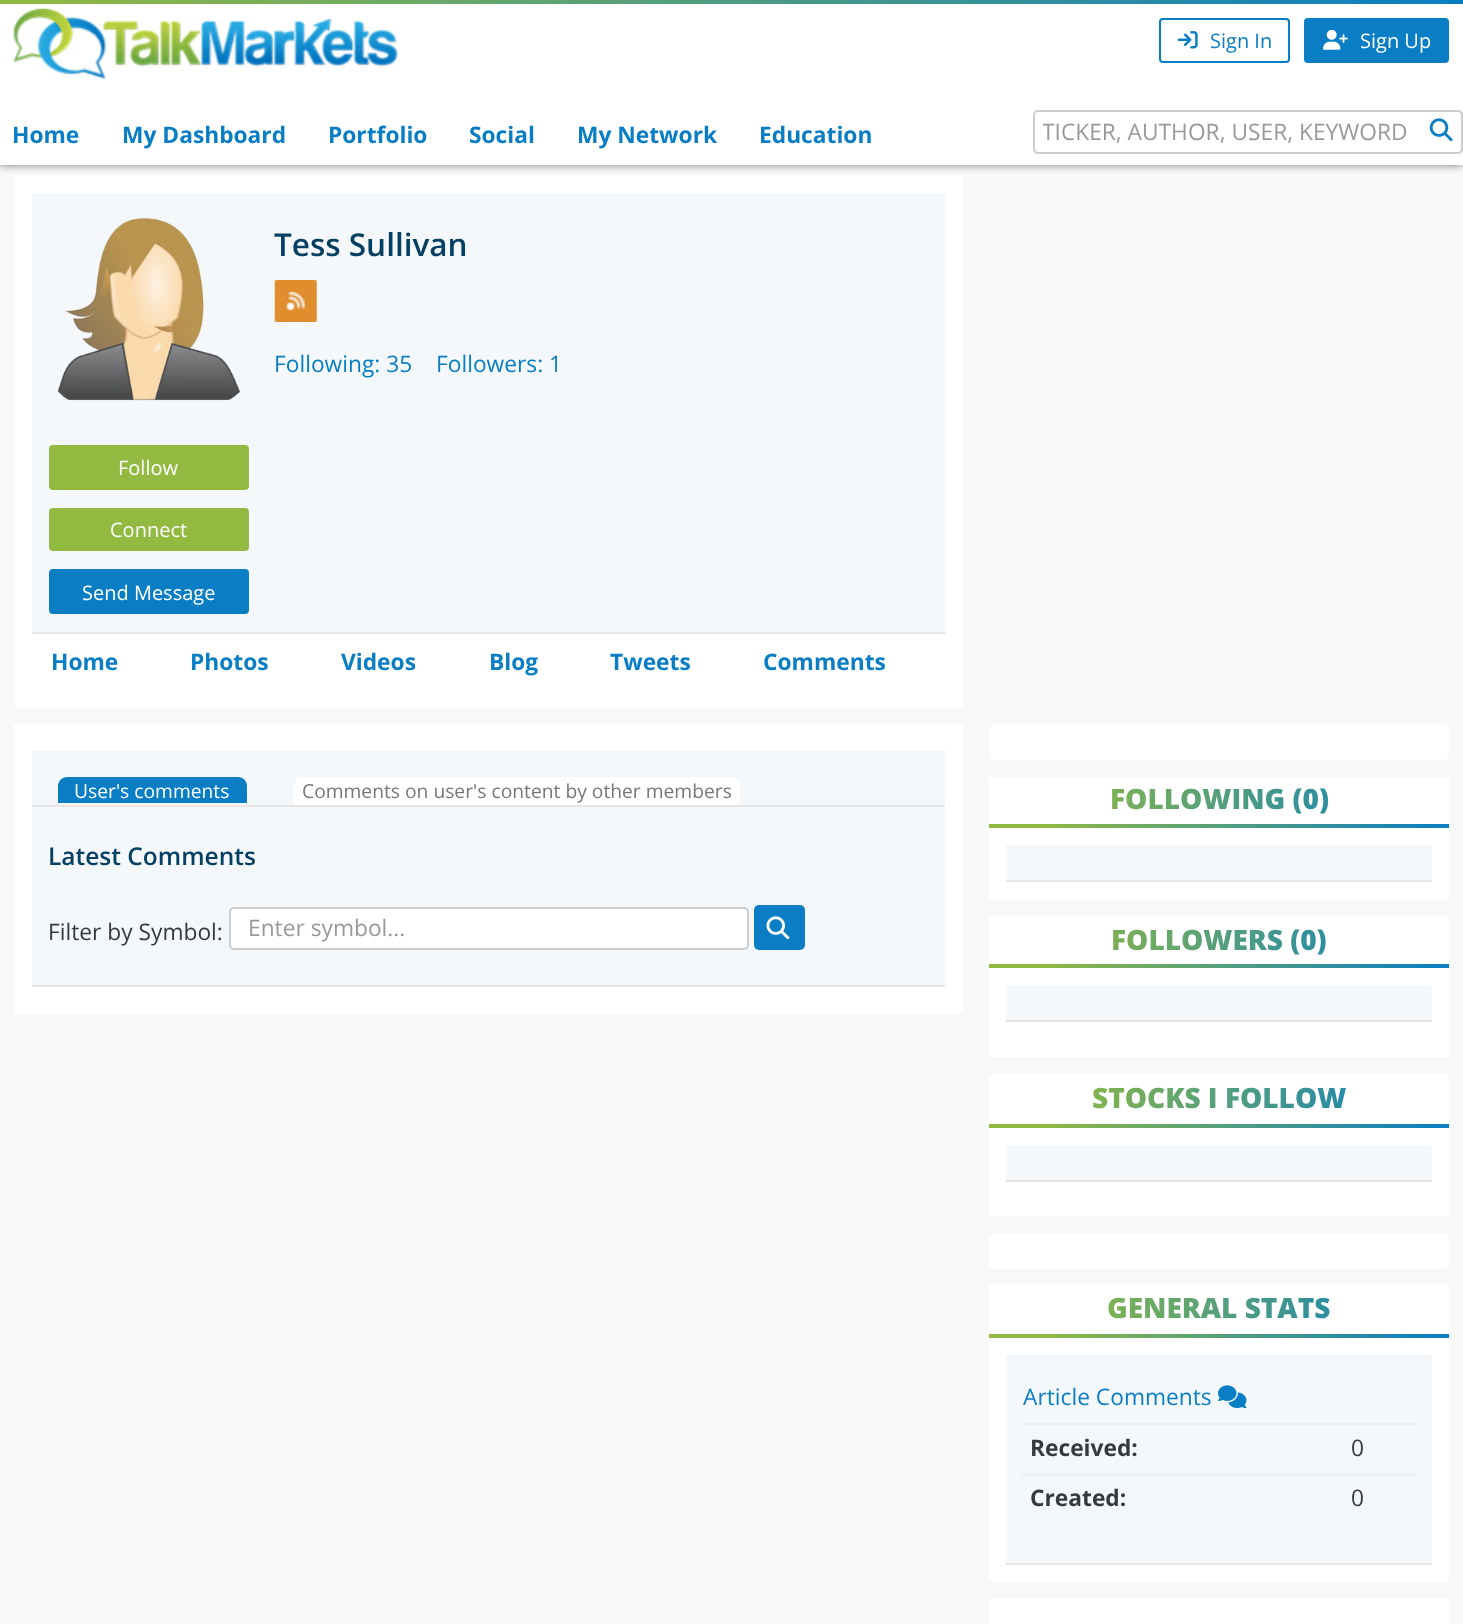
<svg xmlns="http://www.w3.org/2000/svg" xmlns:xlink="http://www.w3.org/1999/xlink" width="1463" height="1624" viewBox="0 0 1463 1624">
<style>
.cls-1{font:20px Open Sans;fill:#097ec4}
.cls-2{font:20px Open Sans;fill:#ffffff}
.cls-3{font:bold 22.75px Open Sans;fill:#097ec4}
.cls-4{font:22.75px Open Sans;fill:#999999}
.cls-5{font:600 31.5px Open Sans;fill:#053f62}
.cls-6{font:22.75px Open Sans;fill:#097ec4}
.cls-7{font:19.25px Open Sans;fill:#ffffff}
.cls-8{font:19.25px Open Sans;fill:#777777}
.cls-9{font:600 24.5px Open Sans;fill:#053f62}
.cls-10{font:22.75px Open Sans;fill:#373a3c}
.cls-11{font:800 28px Open Sans;fill:url(#g6)}
.cls-12{font:800 28px Open Sans;fill:url(#g7)}
.cls-13{font:800 28px Open Sans;fill:url(#g8)}
.cls-14{font:800 28px Open Sans;fill:url(#g9)}
.cls-15{font:bold 22.75px Open Sans;fill:#373a3c}
</style>
<defs>
<linearGradient id="g1" gradientUnits="userSpaceOnUse" x1="0" y1="1.8" x2="1463" y2="1.7"><stop offset="0" stop-color="#92ba40"/><stop offset="1" stop-color="#097ec4"/></linearGradient>
<linearGradient id="g2" gradientUnits="userSpaceOnUse" x1="989" y1="826" x2="1449" y2="826"><stop offset="0.1" stop-color="#92ba40"/><stop offset="1" stop-color="#097ec4"/></linearGradient>
<linearGradient id="g3" gradientUnits="userSpaceOnUse" x1="989" y1="966" x2="1449" y2="966"><stop offset="0.1" stop-color="#92ba40"/><stop offset="1" stop-color="#097ec4"/></linearGradient>
<linearGradient id="g4" gradientUnits="userSpaceOnUse" x1="989" y1="1125" x2="1449" y2="1125"><stop offset="0.1" stop-color="#92ba40"/><stop offset="1" stop-color="#097ec4"/></linearGradient>
<linearGradient id="g5" gradientUnits="userSpaceOnUse" x1="989" y1="1335" x2="1449" y2="1335"><stop offset="0.1" stop-color="#92ba40"/><stop offset="1" stop-color="#097ec4"/></linearGradient>
<clipPath id="clip1"><rect x="1043" y="116" width="375" height="31"/></clipPath>
<linearGradient id="g6" gradientUnits="userSpaceOnUse" x1="1006" y1="800" x2="1432" y2="800"><stop offset="0.1" stop-color="#92ba40"/><stop offset="1" stop-color="#097ec4"/></linearGradient>
<linearGradient id="g7" gradientUnits="userSpaceOnUse" x1="1006" y1="941" x2="1432" y2="941"><stop offset="0.1" stop-color="#92ba40"/><stop offset="1" stop-color="#097ec4"/></linearGradient>
<linearGradient id="g8" gradientUnits="userSpaceOnUse" x1="1006" y1="1099" x2="1432" y2="1099"><stop offset="0.1" stop-color="#92ba40"/><stop offset="1" stop-color="#097ec4"/></linearGradient>
<linearGradient id="g9" gradientUnits="userSpaceOnUse" x1="1006" y1="1309" x2="1432" y2="1309"><stop offset="0.1" stop-color="#92ba40"/><stop offset="1" stop-color="#097ec4"/></linearGradient>
</defs>
<rect width="100%" height="100%" fill="#f8f8f8"/>
<rect fill="#ffffff" x="14" y="175" width="949" height="532" rx="5"/>
<path fill="none" stroke="#ffffff" stroke-width="17.5" d="M23 184H954V698H23Z"/>
<rect fill="#777777" filter="blur(4.5px)" x="0" y="0" width="1463" height="165"/>
<rect fill="url(#g1)" x="0" y="0" width="1463" height="4"/>
<rect fill="#ffffff" x="0" y="4" width="1463" height="161"/>
<image xlink:href="image0.png" x="13" y="8" width="386" height="71"/>
<rect fill="none" stroke="#097ec4" stroke-width="2" x="1160" y="19" width="129" height="43" rx="3"/>
<image xlink:href="image1.png" x="1177" y="31" width="21" height="18"/>
<rect fill="#097ec4" stroke="#097ec4" stroke-width="2" x="1305" y="19" width="143" height="43" rx="3"/>
<image xlink:href="image2.png" x="1323" y="29" width="25" height="21"/>
<rect fill="none" stroke="#cccccc" stroke-width="2" x="1034" y="111" width="428" height="42" rx="4"/>
<image xlink:href="image3.png" x="1429" y="118" width="24" height="24"/>
<rect fill="#f4f8fa" x="32" y="193" width="913" height="439"/>
<rect fill="#e5e5e5" x="32" y="632" width="913" height="2"/>
<image xlink:href="image4.png" x="274" y="280" width="43" height="42"/>
<image xlink:href="image5.png" x="57" y="218" width="184" height="183"/>
<rect fill="#92ba40" stroke="#92ba40" stroke-width="2" x="50" y="446" width="198" height="43" rx="3"/>
<rect fill="#92ba40" stroke="#92ba40" stroke-width="2" x="50" y="509" width="198" height="41" rx="3"/>
<rect fill="#097ec4" stroke="#097ec4" stroke-width="2" x="50" y="570" width="198" height="43" rx="3"/>
<rect fill="#ffffff" x="14" y="725" width="949" height="288" rx="5"/>
<path fill="none" stroke="#ffffff" stroke-width="17.5" d="M23 733H954V1004.5H23Z"/>
<rect fill="#f4f8fa" x="32" y="751" width="913" height="54"/>
<rect fill="#e5e5e5" x="32" y="805" width="913" height="2"/>
<path fill="#097ec4" d="M67 777H238C243 777 247 781 247 786V803H58V786C58 781 62 777 67 777Z"/>
<path fill="#ffffff" d="M303 777H731C736 777 740 781 740 786V805H294V786C294 781 298 777 303 777Z"/>
<rect fill="#f4f8fa" x="32" y="807" width="913" height="178"/>
<rect fill="#e5e5e5" x="32" y="985" width="913" height="2"/>
<rect fill="#ffffff" stroke="#cccccc" stroke-width="2" x="230" y="908" width="518" height="41" rx="4"/>
<rect fill="#097ec4" stroke="#097ec4" stroke-width="2" x="755" y="906" width="49" height="43" rx="4"/>
<image xlink:href="image6.png" x="766" y="916" width="24" height="24"/>
<rect fill="#ffffff" x="989" y="725" width="460" height="35" rx="5"/>
<rect fill="#ffffff" x="989" y="777" width="460" height="123" rx="5"/>
<path fill="none" stroke="#ffffff" stroke-width="17.5" d="M997.5 786H1440V891H997.5Z"/>
<rect fill="url(#g2)" x="989" y="824" width="460" height="4"/>
<rect fill="#f4f8fa" x="1006" y="845" width="426" height="35"/>
<rect fill="#e5e5e5" x="1006" y="880" width="426" height="2"/>
<rect fill="#ffffff" x="989" y="917" width="460" height="140" rx="5"/>
<path fill="none" stroke="#ffffff" stroke-width="17.5" d="M997.5 926H1440V1048H997.5Z"/>
<rect fill="url(#g3)" x="989" y="964" width="460" height="4"/>
<rect fill="#f4f8fa" x="1006" y="985" width="426" height="35"/>
<rect fill="#e5e5e5" x="1006" y="1020" width="426" height="2"/>
<rect fill="#ffffff" x="989" y="1075" width="460" height="141" rx="5"/>
<path fill="none" stroke="#ffffff" stroke-width="17.5" d="M997.5 1083H1440V1207.5H997.5Z"/>
<rect fill="url(#g4)" x="989" y="1124" width="460" height="4"/>
<rect fill="#f4f8fa" x="1006" y="1145" width="426" height="35"/>
<rect fill="#e5e5e5" x="1006" y="1180" width="426" height="2"/>
<rect fill="#ffffff" x="989" y="1234" width="460" height="35" rx="5"/>
<rect fill="#ffffff" x="989" y="1285" width="460" height="297" rx="5"/>
<path fill="none" stroke="#ffffff" stroke-width="17.5" d="M997.5 1293H1440V1573H997.5Z"/>
<rect fill="url(#g5)" x="989" y="1334" width="460" height="4"/>
<rect fill="#f4f8fa" x="1006" y="1355" width="426" height="208"/>
<rect fill="#e5e5e5" x="1006" y="1563" width="426" height="2"/>
<image xlink:href="image7.png" x="1218" y="1385" width="29" height="24"/>
<rect fill="#eceeef" x="1022" y="1423" width="394" height="2"/>
<rect fill="#eceeef" x="1022" y="1474" width="394" height="2"/>
<rect fill="#ffffff" x="989" y="1600" width="460" height="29" rx="5"/>
<path fill="none" stroke="#ffffff" stroke-width="17.5" d="M997.5 1608H1440V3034.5H997.5Z"/>
<text class="cls-1" x="1210" y="48">Sign In</text>
<text class="cls-2" x="1360" y="48">Sign Up</text>
<text class="cls-3" x="12" y="143">Home</text>
<text class="cls-3" x="122" y="143">My Dashboard</text>
<text class="cls-3" x="328" y="143">Portfolio</text>
<text class="cls-3" x="469" y="143">Social</text>
<text class="cls-3" x="577" y="143">My Network</text>
<text class="cls-3" x="759" y="143">Education</text>
<g clip-path="url(#clip1)">
<text class="cls-4" x="1042" y="140">TICKER, AUTHOR, USER, KEYWORD</text>
</g>
<text class="cls-5" x="274" y="256">Tess Sullivan</text>
<text class="cls-6" x="274" y="372">Following: 35</text>
<text class="cls-6" x="436" y="372">Followers: 1</text>
<text class="cls-2" x="118" y="475">Follow</text>
<text class="cls-2" x="110" y="537">Connect</text>
<text class="cls-2" x="82" y="600">Send Message</text>
<text class="cls-3" x="51" y="670">Home</text>
<text class="cls-3" x="190" y="670">Photos</text>
<text class="cls-3" x="341" y="670">Videos</text>
<text class="cls-3" x="489" y="670">Blog</text>
<text class="cls-3" x="610" y="670">Tweets</text>
<text class="cls-3" x="763" y="670">Comments</text>
<text class="cls-7" x="74" y="798">User's comments</text>
<text class="cls-8" x="302" y="798">Comments on user's content by other members</text>
<text class="cls-9" x="48" y="865">Latest Comments</text>
<text class="cls-10" x="48" y="940">Filter by Symbol:</text>
<text class="cls-4" x="248" y="936">Enter symbol...</text>
<text class="cls-11" x="1110" y="809">FOLLOWING (0)</text>
<text class="cls-12" x="1111" y="950">FOLLOWERS (0)</text>
<text class="cls-13" x="1092" y="1108">STOCKS I FOLLOW</text>
<text class="cls-14" x="1107" y="1318">GENERAL STATS</text>
<text class="cls-6" x="1023" y="1405">Article Comments</text>
<text class="cls-15" x="1030" y="1456">Received:</text>
<text class="cls-10" x="1351" y="1456">0</text>
<text class="cls-15" x="1030" y="1506">Created:</text>
<text class="cls-10" x="1351" y="1506">0</text>
</svg>
